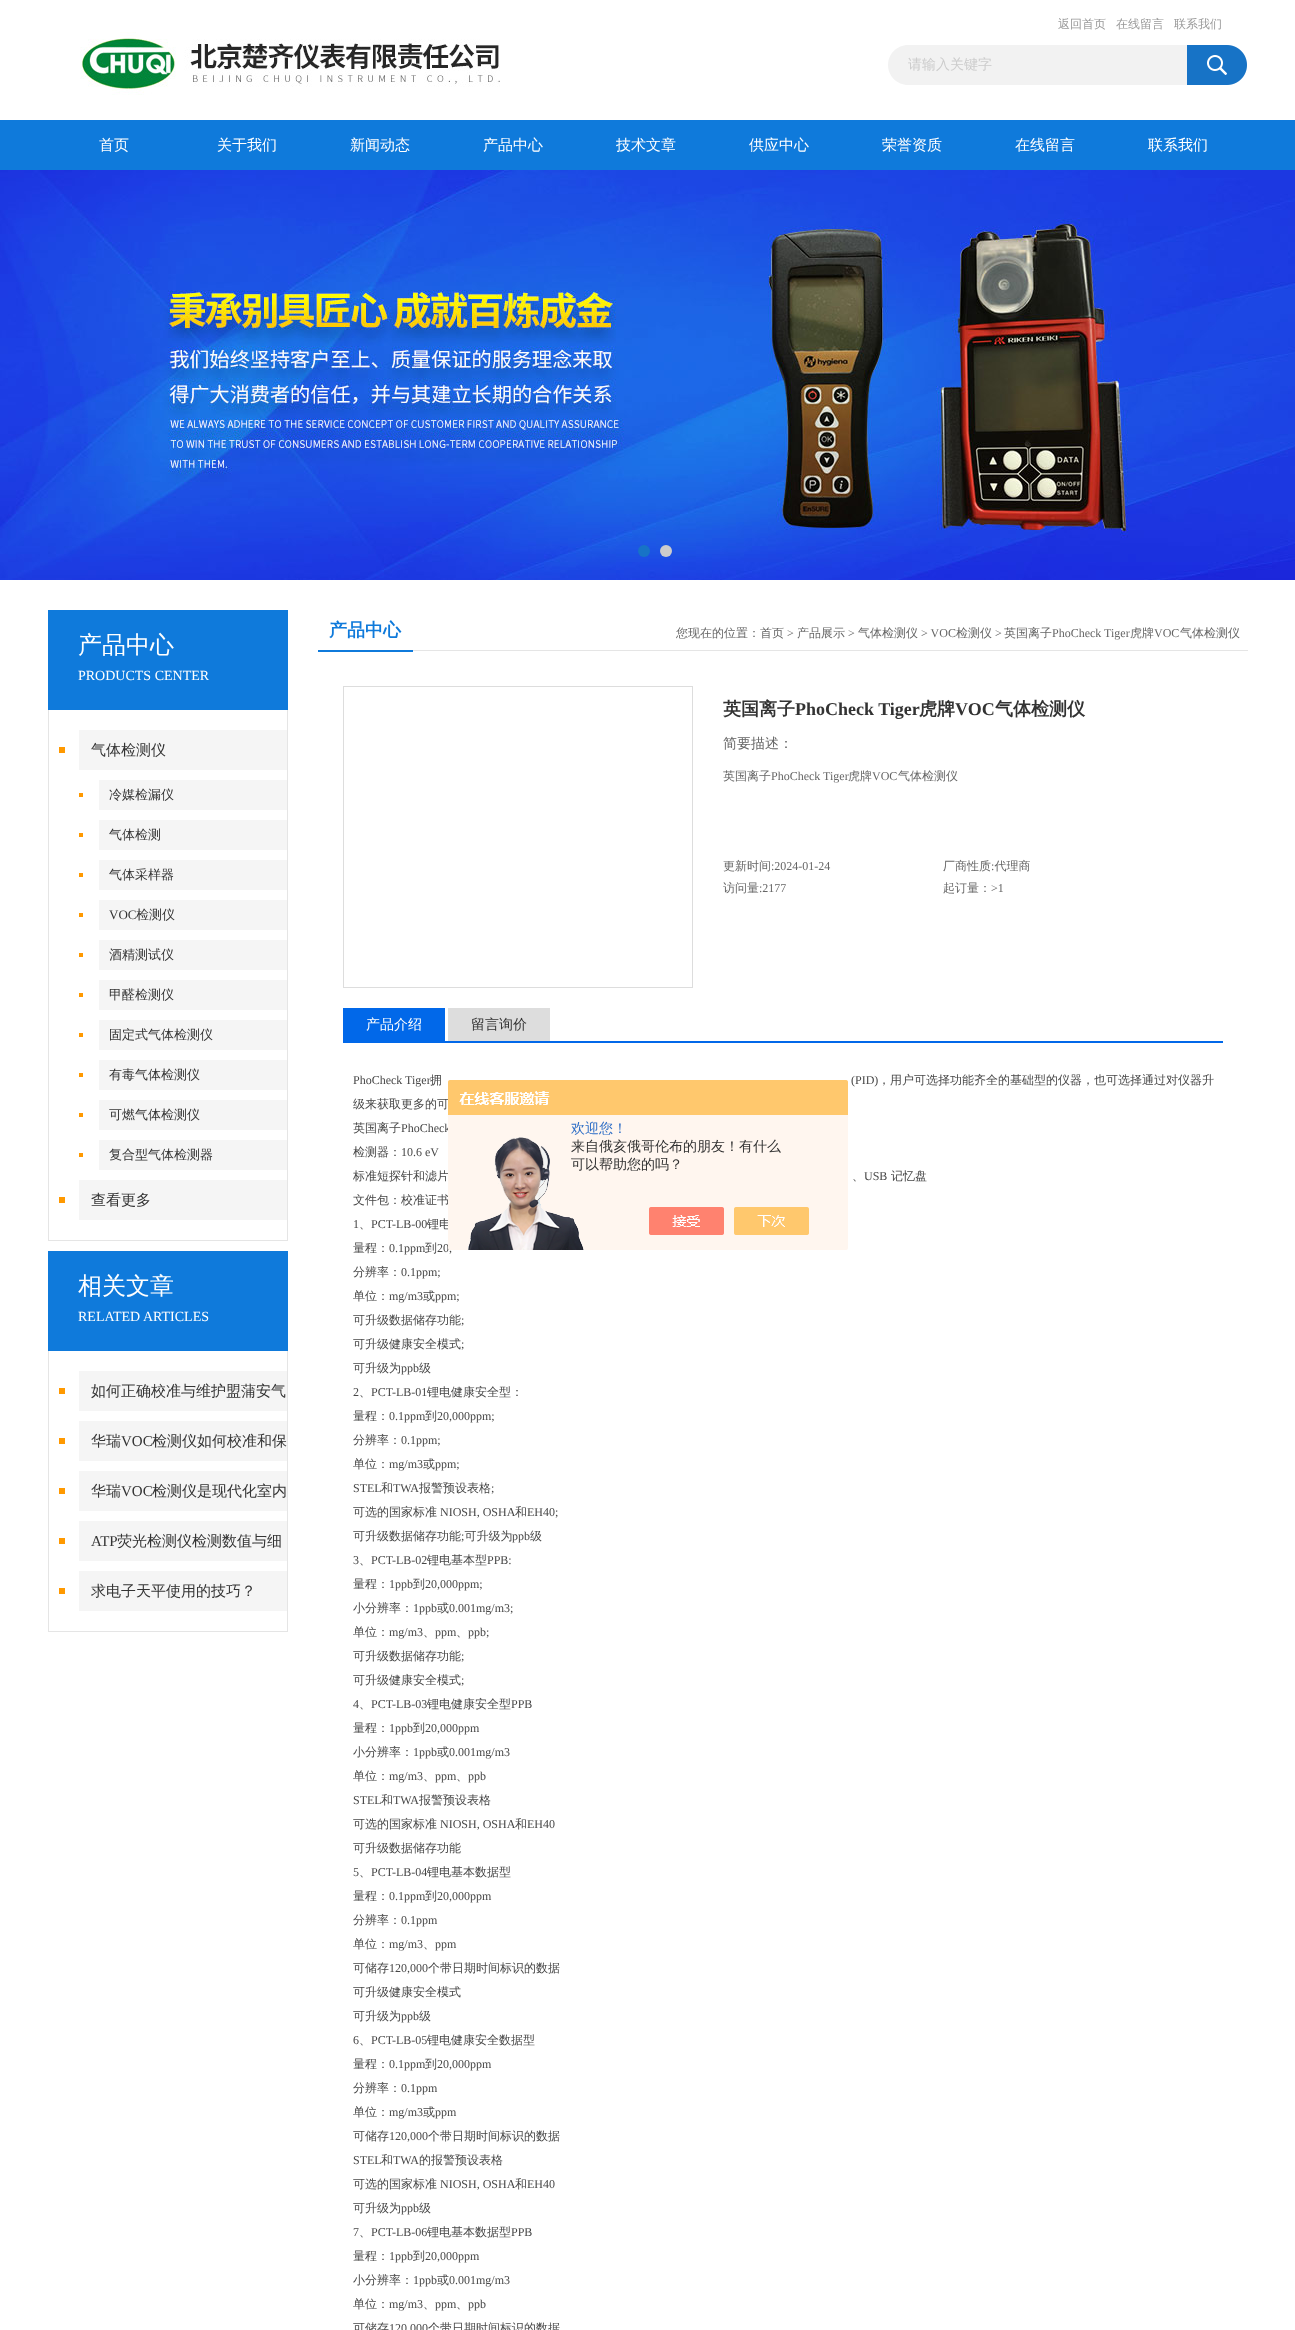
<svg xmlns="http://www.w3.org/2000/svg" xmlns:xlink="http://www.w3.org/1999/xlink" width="1295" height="2330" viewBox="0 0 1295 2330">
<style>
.cls-1{font:500 12px WenQuanYi Zen Hei;fill:#999999}
.cls-2{font:500 14px WenQuanYi Zen Hei;fill:#cccccc}
.cls-3{font:500 15px WenQuanYi Zen Hei;fill:#ffffff}
.cls-4{font:500 24px WenQuanYi Zen Hei;fill:#ffffff}
.cls-5{font:14px Liberation Serif;fill:#ffffff}
.cls-6{font:500 15px WenQuanYi Zen Hei;fill:#333333}
.cls-7{font:500 13px WenQuanYi Zen Hei;fill:#333333}
.cls-8{font:13px Liberation Serif;fill:#333333}
.cls-9{font:15px Liberation Serif;fill:#333333}
.cls-10{font:bold 18px WenQuanYi Zen Hei;fill:#0f7adb}
.cls-11{font:500 12px WenQuanYi Zen Hei;fill:#666666}
.cls-12{font:12px Liberation Serif;fill:#666666}
.cls-13{font:bold 18px WenQuanYi Zen Hei;fill:#333333}
.cls-14{font:bold 18px Liberation Serif;fill:#333333}
.cls-15{font:500 14px WenQuanYi Zen Hei;fill:#666666}
.cls-16{font:500 14px WenQuanYi Zen Hei;fill:#ffffff}
.cls-17{font:500 14px WenQuanYi Zen Hei;fill:#333333}
.cls-18{font:12px Liberation Serif;fill:#474747}
.cls-19{font:500 12px WenQuanYi Zen Hei;fill:#474747}
.cls-20{font:500 14px WenQuanYi Zen Hei;fill:#2e6ec6}
</style>
<defs>
<clipPath id="clip1"><rect x="353" y="1053" width="862" height="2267"/></clipPath>
</defs>
<rect width="100%" height="100%" fill="#ffffff"/>
<image xlink:href="image0.png" x="80" y="32" width="420" height="63"/>
<path fill="#f2f2f2" d="M908 45H1187V85H908C897 85 888 76 888 65C888 54 897 45 908 45Z"/>
<image xlink:href="image1.png" x="1187" y="45" width="60" height="40"/>
<rect fill="#0f7adb" x="0" y="120" width="1295" height="50"/>
<image xlink:href="image2.png" x="0" y="170" width="1295" height="410"/>
<circle fill="#1773c6" cx="644" cy="551" r="6"/>
<circle fill="#cccccc" cx="666" cy="551" r="6"/>
<rect fill="#0f7adb" x="48" y="610" width="240" height="100"/>
<rect fill="#e5e5e5" x="287" y="710" width="1" height="531"/>
<rect fill="#e5e5e5" x="48" y="1240" width="240" height="1"/>
<rect fill="#e5e5e5" x="48" y="710" width="1" height="531"/>
<rect fill="#ff9900" x="59" y="747" width="6" height="6"/>
<rect fill="#f5f5f5" x="79" y="730" width="208" height="40"/>
<rect fill="#ff9900" x="79" y="793" width="4" height="4"/>
<rect fill="#f5f5f5" x="99" y="780" width="188" height="30"/>
<rect fill="#ff9900" x="79" y="833" width="4" height="4"/>
<rect fill="#f5f5f5" x="99" y="820" width="188" height="30"/>
<rect fill="#ff9900" x="79" y="873" width="4" height="4"/>
<rect fill="#f5f5f5" x="99" y="860" width="188" height="30"/>
<rect fill="#ff9900" x="79" y="913" width="4" height="4"/>
<rect fill="#f5f5f5" x="99" y="900" width="188" height="30"/>
<rect fill="#ff9900" x="79" y="953" width="4" height="4"/>
<rect fill="#f5f5f5" x="99" y="940" width="188" height="30"/>
<rect fill="#ff9900" x="79" y="993" width="4" height="4"/>
<rect fill="#f5f5f5" x="99" y="980" width="188" height="30"/>
<rect fill="#ff9900" x="79" y="1033" width="4" height="4"/>
<rect fill="#f5f5f5" x="99" y="1020" width="188" height="30"/>
<rect fill="#ff9900" x="79" y="1073" width="4" height="4"/>
<rect fill="#f5f5f5" x="99" y="1060" width="188" height="30"/>
<rect fill="#ff9900" x="79" y="1113" width="4" height="4"/>
<rect fill="#f5f5f5" x="99" y="1100" width="188" height="30"/>
<rect fill="#ff9900" x="79" y="1153" width="4" height="4"/>
<rect fill="#f5f5f5" x="99" y="1140" width="188" height="30"/>
<rect fill="#ff9900" x="59" y="1197" width="6" height="6"/>
<rect fill="#f5f5f5" x="79" y="1180" width="208" height="40"/>
<rect fill="#0f7adb" x="48" y="1251" width="240" height="100"/>
<rect fill="#e5e5e5" x="287" y="1351" width="1" height="281"/>
<rect fill="#e5e5e5" x="48" y="1631" width="240" height="1"/>
<rect fill="#e5e5e5" x="48" y="1351" width="1" height="281"/>
<rect fill="#ff9900" x="59" y="1388" width="6" height="6"/>
<rect fill="#f5f5f5" x="79" y="1371" width="208" height="40"/>
<rect fill="#ff9900" x="59" y="1438" width="6" height="6"/>
<rect fill="#f5f5f5" x="79" y="1421" width="208" height="40"/>
<rect fill="#ff9900" x="59" y="1488" width="6" height="6"/>
<rect fill="#f5f5f5" x="79" y="1471" width="208" height="40"/>
<rect fill="#ff9900" x="59" y="1538" width="6" height="6"/>
<rect fill="#f5f5f5" x="79" y="1521" width="208" height="40"/>
<rect fill="#ff9900" x="59" y="1588" width="6" height="6"/>
<rect fill="#f5f5f5" x="79" y="1571" width="208" height="40"/>
<rect fill="#e5e5e5" x="413" y="650" width="835" height="1"/>
<rect fill="#0f7adb" x="318" y="650" width="95" height="2"/>
<rect fill="none" stroke="#dddddd" x="343.5" y="686.5" width="349" height="301"/>
<rect fill="#0168e9" x="343" y="1041" width="880" height="2"/>
<rect fill="#0168e9" x="343" y="1008" width="102" height="33"/>
<rect fill="#dddddd" x="448" y="1008" width="102" height="33"/>
<text class="cls-1" x="1058" y="28">返回首页</text>
<text class="cls-1" x="1116" y="28">在线留言</text>
<text class="cls-1" x="1174" y="28">联系我们</text>
<text class="cls-2" x="908" y="69">请输入关键字</text>
<text class="cls-3" x="99" y="150">首页</text>
<text class="cls-3" x="217" y="150">关于我们</text>
<text class="cls-3" x="350" y="150">新闻动态</text>
<text class="cls-3" x="483" y="150">产品中心</text>
<text class="cls-3" x="616" y="150">技术文章</text>
<text class="cls-3" x="749" y="150">供应中心</text>
<text class="cls-3" x="882" y="150">荣誉资质</text>
<text class="cls-3" x="1015" y="150">在线留言</text>
<text class="cls-3" x="1148" y="150">联系我们</text>
<text class="cls-4" x="78" y="653">产品中心</text>
<text class="cls-5" x="78" y="680">PRODUCTS CENTER</text>
<text class="cls-6" x="91" y="755">气体检测仪</text>
<text class="cls-7" x="109" y="799">冷媒检漏仪</text>
<text class="cls-7" x="109" y="839">气体检测</text>
<text class="cls-7" x="109" y="879">气体采样器</text>
<text class="cls-8" x="109" y="919">VOC</text>
<text class="cls-7" x="136" y="919">检测仪</text>
<text class="cls-7" x="109" y="959">酒精测试仪</text>
<text class="cls-7" x="109" y="999">甲醛检测仪</text>
<text class="cls-7" x="109" y="1039">固定式气体检测仪</text>
<text class="cls-7" x="109" y="1079">有毒气体检测仪</text>
<text class="cls-7" x="109" y="1119">可燃气体检测仪</text>
<text class="cls-7" x="109" y="1159">复合型气体检测器</text>
<text class="cls-6" x="91" y="1205">查看更多</text>
<text class="cls-4" x="78" y="1294">相关文章</text>
<text class="cls-5" x="78" y="1321">RELATED ARTICLES</text>
<text class="cls-6" x="91" y="1396">如何正确校准与维护盟蒲安气</text>
<text class="cls-6" x="91" y="1446">华瑞</text>
<text class="cls-9" x="121" y="1446">VOC</text>
<text class="cls-6" x="152" y="1446">检测仪如何校准和保</text>
<text class="cls-6" x="91" y="1496">华瑞</text>
<text class="cls-9" x="121" y="1496">VOC</text>
<text class="cls-6" x="152" y="1496">检测仪是现代化室内</text>
<text class="cls-9" x="91" y="1546">ATP</text>
<text class="cls-6" x="117" y="1546">荧光检测仪检测数值与细</text>
<text class="cls-6" x="91" y="1596">求电子天平使用的技巧？</text>
<text class="cls-10" x="329" y="636">产品中心</text>
<text class="cls-11" x="676" y="637">您现在的位置：首页</text>
<text class="cls-12" x="787" y="637">&gt;</text>
<text class="cls-11" x="797" y="637">产品展示</text>
<text class="cls-12" x="848" y="637">&gt;</text>
<text class="cls-11" x="858" y="637">气体检测仪</text>
<text class="cls-12" x="921" y="637">&gt; VOC</text>
<text class="cls-11" x="956" y="637">检测仪</text>
<text class="cls-12" x="995" y="637">&gt;</text>
<text class="cls-11" x="1004" y="637">英国离子</text>
<text class="cls-12" x="1052" y="637">PhoCheck Tiger</text>
<text class="cls-11" x="1130" y="637">虎牌</text>
<text class="cls-12" x="1154" y="637">VOC</text>
<text class="cls-11" x="1180" y="637">气体检测仪</text>
<text class="cls-13" x="723" y="715">英国离子</text>
<text class="cls-14" x="795" y="715">PhoCheck Tiger</text>
<text class="cls-13" x="919" y="715">虎牌</text>
<text class="cls-14" x="955" y="715">VOC</text>
<text class="cls-13" x="995" y="715">气体检测仪</text>
<text class="cls-15" x="723" y="748">简要描述：</text>
<text class="cls-11" x="723" y="780">英国离子</text>
<text class="cls-12" x="771" y="780">PhoCheck Tiger</text>
<text class="cls-11" x="848" y="780">虎牌</text>
<text class="cls-12" x="872" y="780">VOC</text>
<text class="cls-11" x="898" y="780">气体检测仪</text>
<text class="cls-11" x="723" y="870">更新时间</text>
<text class="cls-12" x="771" y="870">:2024-01-24</text>
<text class="cls-11" x="943" y="870">厂商性质 代理商</text>
<text class="cls-12" x="991" y="870">:</text>
<text class="cls-11" x="723" y="892">访问量</text>
<text class="cls-12" x="759" y="892">:2177</text>
<text class="cls-11" x="943" y="892">起订量：</text>
<text class="cls-12" x="991" y="892">&gt;1</text>
<text class="cls-16" x="366" y="1029">产品介绍</text>
<text class="cls-17" x="471" y="1029">留言询价</text>
<text class="cls-18" x="353" y="1084">PhoCheck Tiger</text>
<text class="cls-19" x="430" y="1084">拥</text>
<text class="cls-18" x="851" y="1084">(PID)</text>
<text class="cls-19" x="878" y="1084">，用户可选择功能齐全的基础型的仪器，也可选择通过对仪器升</text>
<g clip-path="url(#clip1)">
<text class="cls-19" x="353" y="1108">级来获取更多的可</text>
</g>
<text class="cls-19" x="353" y="1132">英国离子</text>
<text class="cls-18" x="401" y="1132">PhoCheck</text>
<text class="cls-19" x="353" y="1156">检测器：</text>
<text class="cls-18" x="401" y="1156">10.6 eV</text>
<text class="cls-19" x="353" y="1180">标准短探针和滤片</text>
<text class="cls-19" x="852" y="1180">、</text>
<text class="cls-18" x="864" y="1180">USB</text>
<text class="cls-19" x="891" y="1180">记忆盘</text>
<text class="cls-19" x="353" y="1204">文件包：校准证书</text>
<text class="cls-18" x="353" y="1228">1</text>
<text class="cls-19" x="359" y="1228">、</text>
<text class="cls-18" x="371" y="1228">PCT-LB-00</text>
<text class="cls-19" x="427" y="1228">锂电</text>
<text class="cls-19" x="353" y="1252">量程：</text>
<text class="cls-18" x="389" y="1252">0.1ppm</text>
<text class="cls-19" x="425" y="1252">到</text>
<text class="cls-18" x="437" y="1252">20,</text>
<text class="cls-19" x="353" y="1276">分辨率：</text>
<text class="cls-18" x="401" y="1276">0.1ppm;</text>
<text class="cls-19" x="353" y="1300">单位：</text>
<text class="cls-18" x="389" y="1300">mg/m3</text>
<text class="cls-19" x="423" y="1300">或</text>
<text class="cls-18" x="435" y="1300">ppm;</text>
<text class="cls-19" x="353" y="1324">可升级数据储存功能</text>
<text class="cls-18" x="461" y="1324">;</text>
<text class="cls-19" x="353" y="1348">可升级健康安全模式</text>
<text class="cls-18" x="461" y="1348">;</text>
<text class="cls-19" x="353" y="1372">可升级为</text>
<text class="cls-18" x="401" y="1372">ppb</text>
<text class="cls-19" x="419" y="1372">级</text>
<text class="cls-18" x="353" y="1396">2</text>
<text class="cls-19" x="359" y="1396">、</text>
<text class="cls-18" x="371" y="1396">PCT-LB-01</text>
<text class="cls-19" x="427" y="1396">锂电健康安全型：</text>
<text class="cls-19" x="353" y="1420">量程：</text>
<text class="cls-18" x="389" y="1420">0.1ppm</text>
<text class="cls-19" x="425" y="1420">到</text>
<text class="cls-18" x="437" y="1420">20,000ppm;</text>
<text class="cls-19" x="353" y="1444">分辨率：</text>
<text class="cls-18" x="401" y="1444">0.1ppm;</text>
<text class="cls-19" x="353" y="1468">单位：</text>
<text class="cls-18" x="389" y="1468">mg/m3</text>
<text class="cls-19" x="423" y="1468">或</text>
<text class="cls-18" x="435" y="1468">ppm;</text>
<text class="cls-18" x="353" y="1492">STEL</text>
<text class="cls-19" x="381" y="1492">和</text>
<text class="cls-18" x="393" y="1492">TWA</text>
<text class="cls-19" x="419" y="1492">报警预设表格</text>
<text class="cls-18" x="491" y="1492">;</text>
<text class="cls-19" x="353" y="1516">可选的国家标准</text>
<text class="cls-18" x="440" y="1516">NIOSH, OSHA</text>
<text class="cls-19" x="515" y="1516">和</text>
<text class="cls-18" x="527" y="1516">EH40;</text>
<text class="cls-19" x="353" y="1540">可升级数据储存功能 可升级为</text>
<text class="cls-18" x="512" y="1540">ppb</text>
<text class="cls-19" x="530" y="1540">级</text>
<text class="cls-18" x="461" y="1540">;</text>
<text class="cls-18" x="353" y="1564">3</text>
<text class="cls-19" x="359" y="1564">、</text>
<text class="cls-18" x="371" y="1564">PCT-LB-02</text>
<text class="cls-19" x="427" y="1564">锂电基本型</text>
<text class="cls-18" x="487" y="1564">PPB:</text>
<text class="cls-19" x="353" y="1588">量程：</text>
<text class="cls-18" x="389" y="1588">1ppb</text>
<text class="cls-19" x="413" y="1588">到</text>
<text class="cls-18" x="425" y="1588">20,000ppm;</text>
<text class="cls-19" x="353" y="1612">小分辨率：</text>
<text class="cls-18" x="413" y="1612">1ppb</text>
<text class="cls-19" x="437" y="1612">或</text>
<text class="cls-18" x="449" y="1612">0.001mg/m3;</text>
<text class="cls-19" x="353" y="1636">单位：</text>
<text class="cls-18" x="389" y="1636">mg/m3</text>
<text class="cls-19" x="423" y="1636">、</text>
<text class="cls-18" x="435" y="1636">ppm</text>
<text class="cls-19" x="456" y="1636">、</text>
<text class="cls-18" x="468" y="1636">ppb;</text>
<text class="cls-19" x="353" y="1660">可升级数据储存功能</text>
<text class="cls-18" x="461" y="1660">;</text>
<text class="cls-19" x="353" y="1684">可升级健康安全模式</text>
<text class="cls-18" x="461" y="1684">;</text>
<text class="cls-18" x="353" y="1708">4</text>
<text class="cls-19" x="359" y="1708">、</text>
<text class="cls-18" x="371" y="1708">PCT-LB-03</text>
<text class="cls-19" x="427" y="1708">锂电健康安全型</text>
<text class="cls-18" x="511" y="1708">PPB</text>
<text class="cls-19" x="353" y="1732">量程：</text>
<text class="cls-18" x="389" y="1732">1ppb</text>
<text class="cls-19" x="413" y="1732">到</text>
<text class="cls-18" x="425" y="1732">20,000ppm</text>
<text class="cls-19" x="353" y="1756">小分辨率：</text>
<text class="cls-18" x="413" y="1756">1ppb</text>
<text class="cls-19" x="437" y="1756">或</text>
<text class="cls-18" x="449" y="1756">0.001mg/m3</text>
<text class="cls-19" x="353" y="1780">单位：</text>
<text class="cls-18" x="389" y="1780">mg/m3</text>
<text class="cls-19" x="423" y="1780">、</text>
<text class="cls-18" x="435" y="1780">ppm</text>
<text class="cls-19" x="456" y="1780">、</text>
<text class="cls-18" x="468" y="1780">ppb</text>
<text class="cls-18" x="353" y="1804">STEL</text>
<text class="cls-19" x="381" y="1804">和</text>
<text class="cls-18" x="393" y="1804">TWA</text>
<text class="cls-19" x="419" y="1804">报警预设表格</text>
<text class="cls-19" x="353" y="1828">可选的国家标准</text>
<text class="cls-18" x="440" y="1828">NIOSH, OSHA</text>
<text class="cls-19" x="515" y="1828">和</text>
<text class="cls-18" x="527" y="1828">EH40</text>
<text class="cls-19" x="353" y="1852">可升级数据储存功能</text>
<text class="cls-18" x="353" y="1876">5</text>
<text class="cls-19" x="359" y="1876">、</text>
<text class="cls-18" x="371" y="1876">PCT-LB-04</text>
<text class="cls-19" x="427" y="1876">锂电基本数据型</text>
<text class="cls-19" x="353" y="1900">量程：</text>
<text class="cls-18" x="389" y="1900">0.1ppm</text>
<text class="cls-19" x="425" y="1900">到</text>
<text class="cls-18" x="437" y="1900">20,000ppm</text>
<text class="cls-19" x="353" y="1924">分辨率：</text>
<text class="cls-18" x="401" y="1924">0.1ppm</text>
<text class="cls-19" x="353" y="1948">单位：</text>
<text class="cls-18" x="389" y="1948">mg/m3</text>
<text class="cls-19" x="423" y="1948">、</text>
<text class="cls-18" x="435" y="1948">ppm</text>
<text class="cls-19" x="353" y="1972">可储存</text>
<text class="cls-18" x="389" y="1972">120,000</text>
<text class="cls-19" x="428" y="1972">个带日期时间标识的数据</text>
<text class="cls-19" x="353" y="1996">可升级健康安全模式</text>
<text class="cls-19" x="353" y="2020">可升级为</text>
<text class="cls-18" x="401" y="2020">ppb</text>
<text class="cls-19" x="419" y="2020">级</text>
<text class="cls-18" x="353" y="2044">6</text>
<text class="cls-19" x="359" y="2044">、</text>
<text class="cls-18" x="371" y="2044">PCT-LB-05</text>
<text class="cls-19" x="427" y="2044">锂电健康安全数据型</text>
<text class="cls-19" x="353" y="2068">量程：</text>
<text class="cls-18" x="389" y="2068">0.1ppm</text>
<text class="cls-19" x="425" y="2068">到</text>
<text class="cls-18" x="437" y="2068">20,000ppm</text>
<text class="cls-19" x="353" y="2092">分辨率：</text>
<text class="cls-18" x="401" y="2092">0.1ppm</text>
<text class="cls-19" x="353" y="2116">单位：</text>
<text class="cls-18" x="389" y="2116">mg/m3</text>
<text class="cls-19" x="423" y="2116">或</text>
<text class="cls-18" x="435" y="2116">ppm</text>
<text class="cls-19" x="353" y="2140">可储存</text>
<text class="cls-18" x="389" y="2140">120,000</text>
<text class="cls-19" x="428" y="2140">个带日期时间标识的数据</text>
<text class="cls-18" x="353" y="2164">STEL</text>
<text class="cls-19" x="381" y="2164">和</text>
<text class="cls-18" x="393" y="2164">TWA</text>
<text class="cls-19" x="419" y="2164">的报警预设表格</text>
<text class="cls-19" x="353" y="2188">可选的国家标准</text>
<text class="cls-18" x="440" y="2188">NIOSH, OSHA</text>
<text class="cls-19" x="515" y="2188">和</text>
<text class="cls-18" x="527" y="2188">EH40</text>
<text class="cls-19" x="353" y="2212">可升级为</text>
<text class="cls-18" x="401" y="2212">ppb</text>
<text class="cls-19" x="419" y="2212">级</text>
<text class="cls-18" x="353" y="2236">7</text>
<text class="cls-19" x="359" y="2236">、</text>
<text class="cls-18" x="371" y="2236">PCT-LB-06</text>
<text class="cls-19" x="427" y="2236">锂电基本数据型</text>
<text class="cls-18" x="511" y="2236">PPB</text>
<text class="cls-19" x="353" y="2260">量程：</text>
<text class="cls-18" x="389" y="2260">1ppb</text>
<text class="cls-19" x="413" y="2260">到</text>
<text class="cls-18" x="425" y="2260">20,000ppm</text>
<text class="cls-19" x="353" y="2284">小分辨率：</text>
<text class="cls-18" x="413" y="2284">1ppb</text>
<text class="cls-19" x="437" y="2284">或</text>
<text class="cls-18" x="449" y="2284">0.001mg/m3</text>
<text class="cls-19" x="353" y="2308">单位：</text>
<text class="cls-18" x="389" y="2308">mg/m3</text>
<text class="cls-19" x="423" y="2308">、</text>
<text class="cls-18" x="435" y="2308">ppm</text>
<text class="cls-19" x="456" y="2308">、</text>
<text class="cls-18" x="468" y="2308">ppb</text>
<text class="cls-19" x="353" y="2332">可储存</text>
<text class="cls-18" x="389" y="2332">120,000</text>
<text class="cls-19" x="428" y="2332">个带日期时间标识的数据</text>
<image xlink:href="image3.png" x="448" y="1080" width="400" height="170"/>
<text class="cls-20" x="571" y="1133">欢迎您！</text>
<text class="cls-17"><tspan x="571" y="1151">来自俄亥俄哥伦布的朋友！有什么</tspan><tspan x="571" y="1169">可以帮助您的吗？</tspan></text>
</svg>
